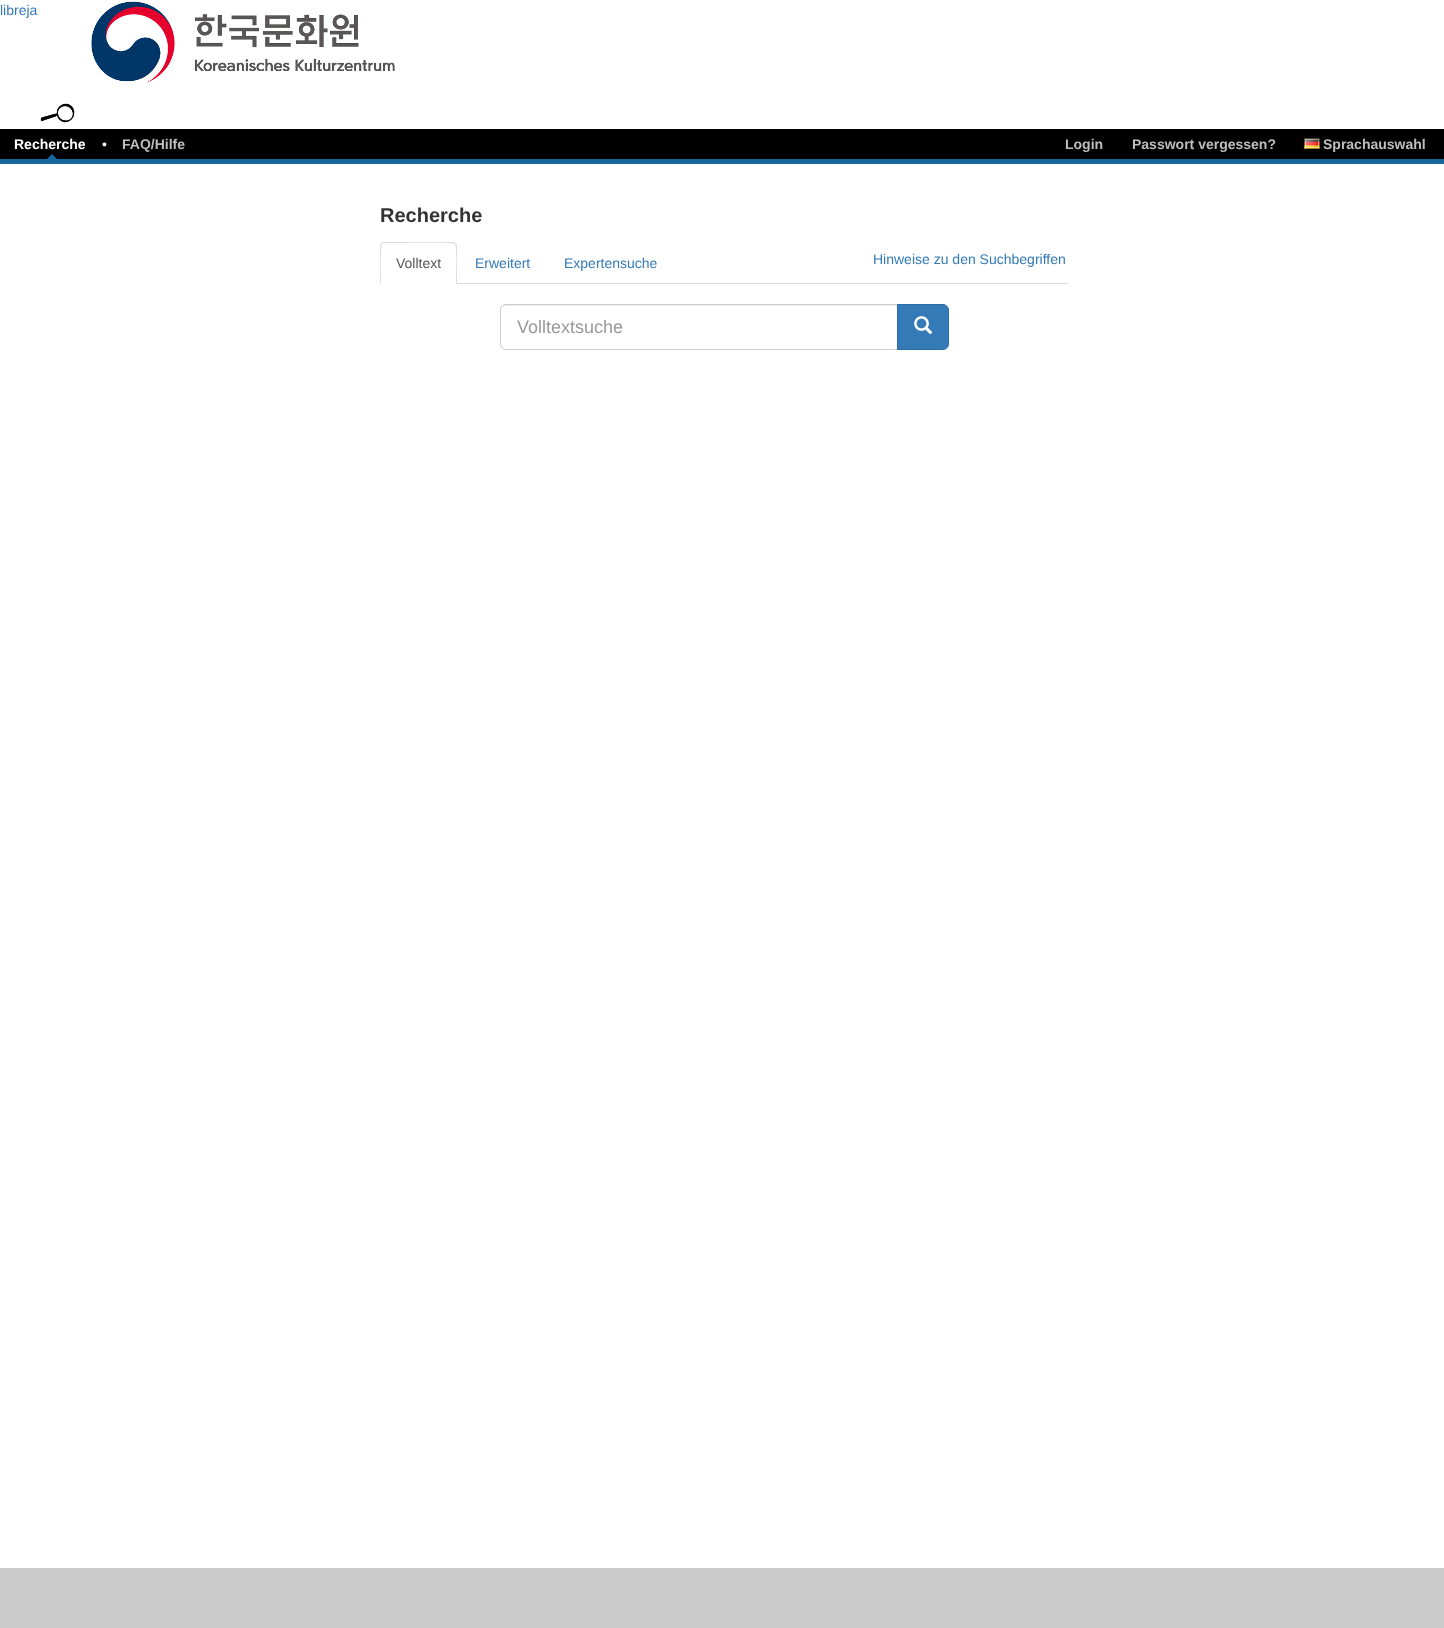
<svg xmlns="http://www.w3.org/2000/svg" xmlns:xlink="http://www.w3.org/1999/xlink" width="1444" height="1628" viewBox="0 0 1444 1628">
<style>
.cls-1{font:14px Liberation Sans;fill:#337ab7}
.cls-2{font:bold 14px Liberation Sans;fill:#ffffff}
.cls-3{font:14px Liberation Sans;fill:#ffffff}
.cls-4{font:bold 14px Liberation Sans;fill:#bebebe}
.cls-5{font:bold 20px Liberation Sans;fill:#333333}
.cls-6{font:14px Liberation Sans;fill:#555555}
.cls-7{font:18px Liberation Sans;fill:#999999}
</style>
<rect width="100%" height="100%" fill="#cccccc"/>
<rect fill="#ffffff" x="0" y="0" width="1444" height="129"/>
<image xlink:href="image0.png" x="91" y="1" width="304" height="82"/>
<rect fill="#000000" x="0" y="129" width="1444" height="30"/>
<rect fill="#18669d" x="0" y="159" width="1444" height="5"/>
<image xlink:href="image1.png" x="40" y="103" width="35" height="20"/>
<path fill="#18669d" d="M57 159H47L52 154Z"/>
<image xlink:href="image2.png" x="1304" y="138" width="16" height="11"/>
<rect fill="#ffffff" x="0" y="164" width="1444" height="1404"/>
<rect fill="#dddddd" x="457" y="283" width="612" height="1"/>
<path fill="#dddddd" d="M384 242L381 243L382 244L384 243H396C402 243 453 242 455 244L456 243L453 242Z"/>
<path fill="#dddddd" d="M457 284V246C457 245 456 244 456 243L455 244C457 246 456 278 456 283Z"/>
<path fill="#dddddd" d="M380 284L381 283C381 278 380 246 382 244L381 243L380 246Z"/>
<path fill="#ececec" d="M506 306H897V305H506C503 305 501 308 501 311C501 308 503 306 506 306Z"/>
<path fill="none" stroke="#cccccc" d="M506 304.5H897.5V349.5H506C503 349.5 500.5 347 500.5 344V310C500.5 307 503 304.5 506 304.5Z"/>
<path fill="#337ab7" stroke="#2e6da4" d="M897.5 304.5H943C946 304.5 948.5 307 948.5 310V344C948.5 347 946 349.5 943 349.5H897.5Z"/>
<image xlink:href="image3.png" x="914" y="316" width="19" height="19"/>
<text class="cls-1" x="0" y="15">libreja</text>
<text class="cls-2" x="14" y="149">Recherche</text>
<text class="cls-3" x="102" y="149">•</text>
<text class="cls-4" x="122" y="149">FAQ/Hilfe</text>
<text class="cls-4" x="1065" y="149">Login</text>
<text class="cls-4" x="1132" y="149">Passwort vergessen?</text>
<text class="cls-4" x="1323" y="149">Sprachauswahl</text>
<text class="cls-5" x="380" y="222">Recherche</text>
<text class="cls-6" x="396" y="268">Volltext</text>
<text class="cls-1" x="475" y="268">Erweitert</text>
<text class="cls-1" x="564" y="268">Expertensuche</text>
<text class="cls-1" x="873" y="264">Hinweise zu den Suchbegriffen</text>
<text class="cls-7" x="517" y="333">Volltextsuche</text>
</svg>
